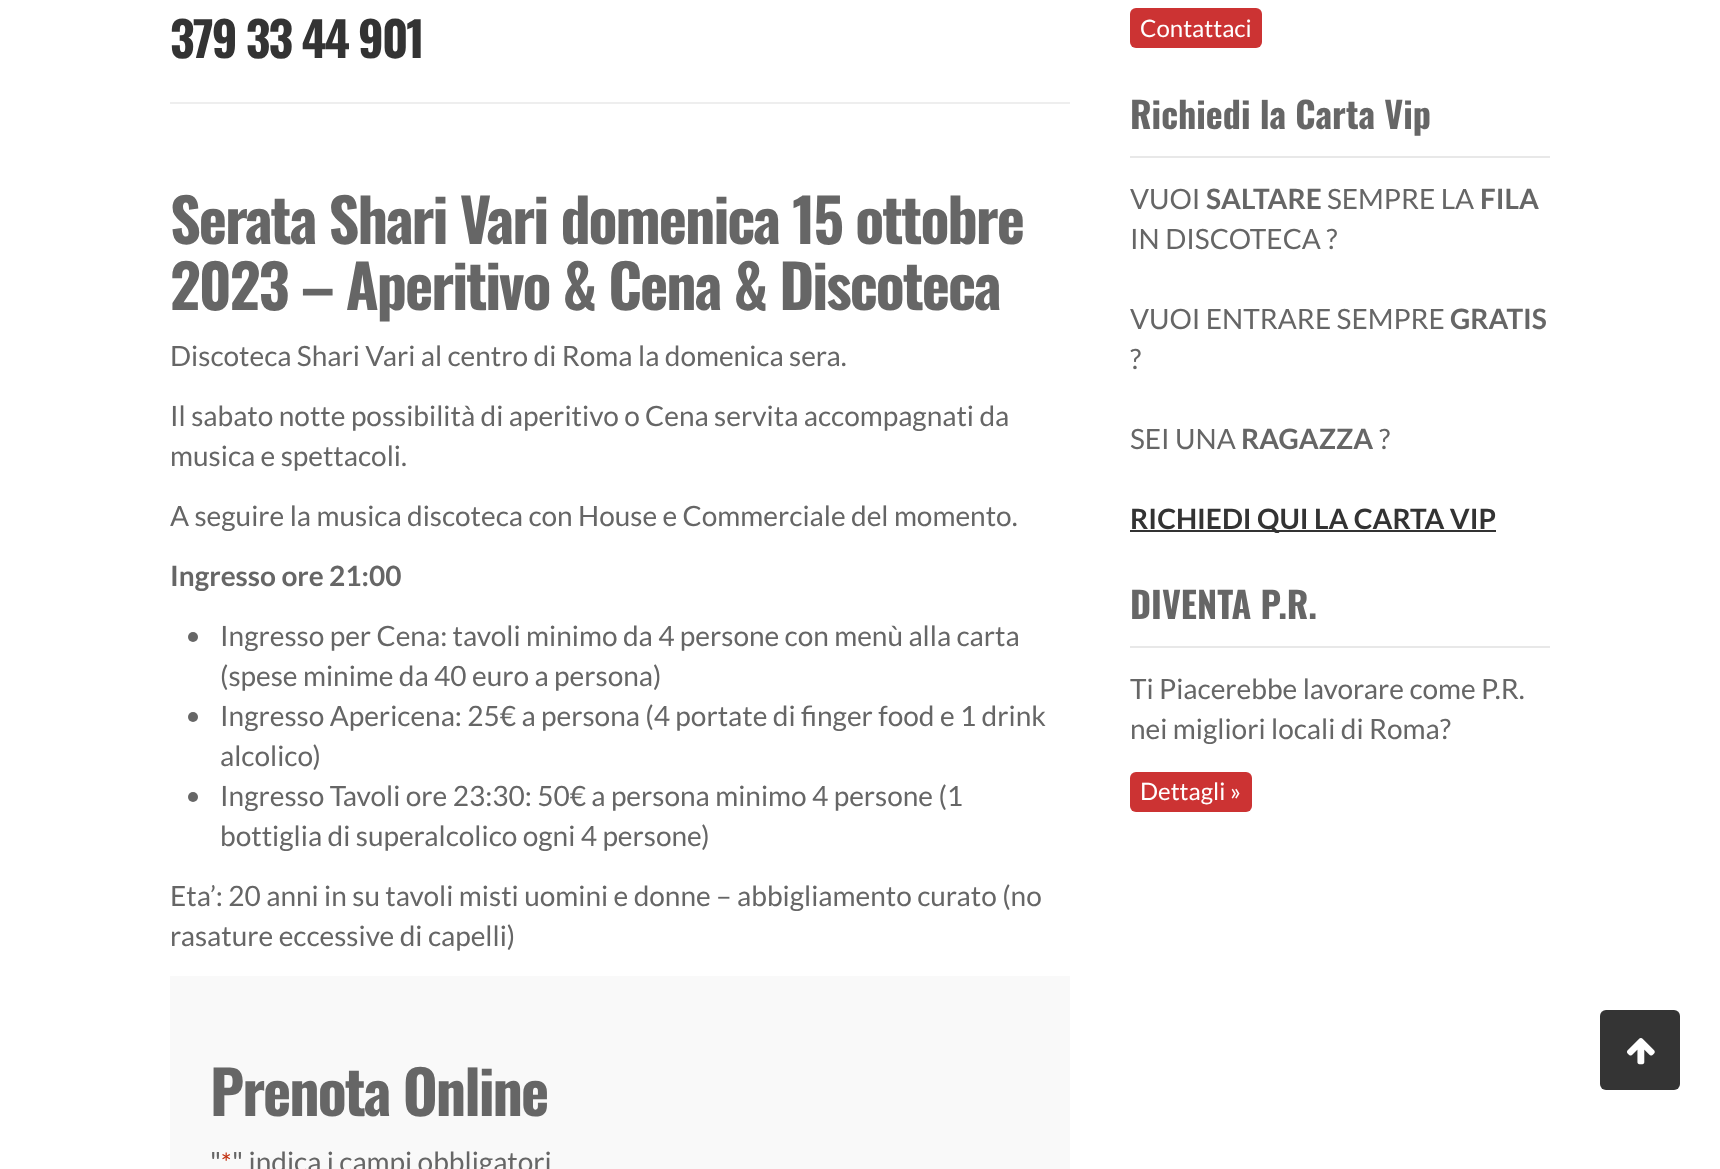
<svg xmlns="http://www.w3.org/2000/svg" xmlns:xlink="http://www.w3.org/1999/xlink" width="1720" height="1169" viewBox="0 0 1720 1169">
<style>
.cls-1{font:bold 48px Oswald;letter-spacing:-2px;fill:#333333}
.cls-2{font:bold 60px Oswald;letter-spacing:-2px;fill:#666666}
.cls-3{font:28px Lato;fill:#666666}
.cls-4{font:bold 28px Lato;fill:#666666}
.cls-5{font:26px Lato;fill:#c02b0a}
.cls-6{font:24px Lato;fill:#ffffff}
.cls-7{font:bold 36px Oswald;fill:#666666}
.cls-8{font:bold 28px Lato;fill:#333333}
</style>
<rect width="100%" height="100%" fill="#ffffff"/>
<rect fill="#eeeeee" x="170" y="102" width="900" height="2"/>
<circle fill="#666666" cx="193" cy="637" r="5"/>
<circle fill="#666666" cx="193" cy="717" r="5"/>
<circle fill="#666666" cx="193" cy="797" r="5"/>
<rect fill="#f9f9f9" x="170" y="976" width="900" height="193"/>
<rect fill="#cc3333" x="1130" y="8" width="132" height="40" rx="6"/>
<rect fill="#e8e8e8" x="1130" y="156" width="420" height="2"/>
<rect fill="#333333" x="1130" y="530" width="366" height="2"/>
<rect fill="#e8e8e8" x="1130" y="646" width="420" height="2"/>
<rect fill="#cc3333" x="1130" y="772" width="122" height="40" rx="6"/>
<rect fill="#343434" x="1600" y="1010" width="80" height="80" rx="6"/>
<image xlink:href="image0.png" x="1627" y="1038" width="28" height="27"/>
<text class="cls-1" x="170" y="58">379 33 44 901</text>
<text class="cls-2"><tspan x="170" y="244">Serata Shari Vari domenica 15 ottobre</tspan><tspan x="170" y="310">2023 – Aperitivo &amp; Cena &amp; Discoteca</tspan></text>
<text class="cls-3" x="170" y="366">Discoteca Shari Vari al centro di Roma la domenica sera.</text>
<text class="cls-3"><tspan x="170" y="426">Il sabato notte possibilità di aperitivo o Cena servita accompagnati da</tspan><tspan x="170" y="466">musica e spettacoli.</tspan></text>
<text class="cls-3" x="170" y="526">A seguire la musica discoteca con House e Commerciale del momento.</text>
<text class="cls-4" x="170" y="586">Ingresso ore 21:00</text>
<text class="cls-3"><tspan x="220" y="646">Ingresso per Cena: tavoli minimo da 4 persone con menù alla carta</tspan><tspan x="220" y="686">(spese minime da 40 euro a persona)</tspan><tspan x="220" y="726">Ingresso Apericena: 25€ a persona (4 portate di finger food e 1 drink</tspan><tspan x="220" y="766">alcolico)</tspan><tspan x="220" y="806">Ingresso Tavoli ore 23:30: 50€ a persona minimo 4 persone (1</tspan><tspan x="220" y="846">bottiglia di superalcolico ogni 4 persone)</tspan></text>
<text class="cls-3"><tspan x="170" y="906">Eta’: 20 anni in su tavoli misti uomini e donne – abbigliamento curato (no</tspan><tspan x="170" y="946">rasature eccessive di capelli)</tspan></text>
<text class="cls-2" x="210" y="1116">Prenota Online</text>
<text class="cls-3" x="210" y="1172">"</text>
<text class="cls-5" x="221" y="1172">*</text>
<text class="cls-3" x="232" y="1172">" indica i campi obbligatori</text>
<text class="cls-6" x="1140" y="37">Contattaci</text>
<text class="cls-7" x="1130" y="129">Richiedi la Carta Vip</text>
<text class="cls-3" x="1130" y="209">VUOI</text>
<text class="cls-4" x="1206" y="209">SALTARE</text>
<text class="cls-3" x="1327" y="209">SEMPRE LA</text>
<text class="cls-4" x="1480" y="209">FILA</text>
<text class="cls-3" x="1130" y="249">IN DISCOTECA ?</text>
<text class="cls-3" x="1130" y="329">VUOI ENTRARE SEMPRE</text>
<text class="cls-4" x="1450" y="329">GRATIS</text>
<text class="cls-3" x="1130" y="369">?</text>
<text class="cls-3" x="1130" y="449">SEI UNA</text>
<text class="cls-4" x="1241" y="449">RAGAZZA</text>
<text class="cls-3" x="1379" y="449">?</text>
<text class="cls-8" x="1130" y="529">RICHIEDI QUI LA CARTA VIP</text>
<text class="cls-7" x="1130" y="619">DIVENTA P.R.</text>
<text class="cls-3"><tspan x="1130" y="699">Ti Piacerebbe lavorare come P.R.</tspan><tspan x="1130" y="739">nei migliori locali di Roma?</tspan></text>
<text class="cls-6" x="1140" y="800">Dettagli »</text>
</svg>
